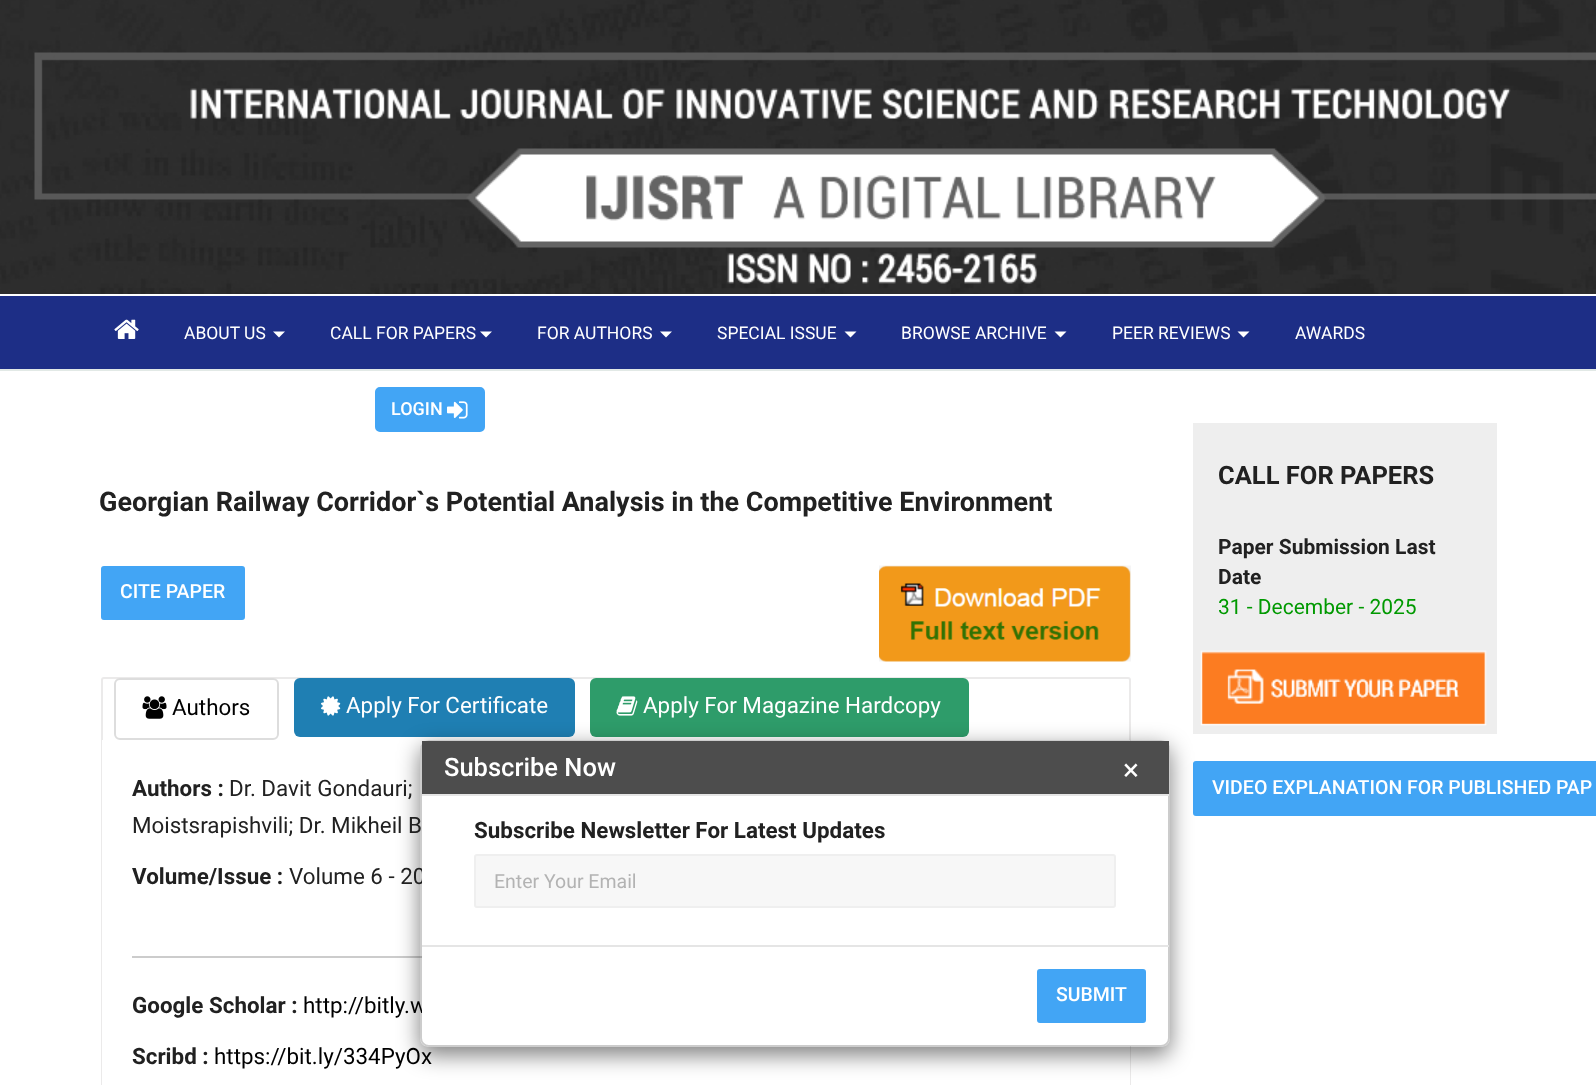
<svg xmlns="http://www.w3.org/2000/svg" xmlns:xlink="http://www.w3.org/1999/xlink" width="1596" height="1085" viewBox="0 0 1596 1085">
<style>
.cls-1{font:17.5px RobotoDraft;fill:#ffffff}
.cls-2{font:500 18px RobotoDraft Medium;fill:#ffffff}
.cls-3{font:bold 27px RobotoDraft;fill:#212121}
.cls-4{font:500 19.5px RobotoDraft Medium;fill:#ffffff}
.cls-5{font:22.4px RobotoDraft;fill:#000000}
.cls-6{font:22.4px RobotoDraft;fill:#ffffff}
.cls-7{font:bold 22.4px RobotoDraft;fill:#212121}
.cls-8{font:22.4px RobotoDraft;fill:#212121}
.cls-9{font:bold 25.5px RobotoDraft;fill:#212121}
.cls-10{font:bold 21px RobotoDraft;fill:#212121}
.cls-11{font:21px RobotoDraft;fill:#009900}
.cls-12{font:500 25.5px RobotoDraft Medium;fill:#ffffff}
.cls-13{font:30px RobotoDraft;fill:#ffffff}
.cls-14{font:19.5px RobotoDraft;fill:#b3b3b3}
</style>
<defs>
<clipPath id="clip1"><path d="M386 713H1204V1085H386ZM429 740H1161C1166 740 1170 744 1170 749V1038C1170 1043 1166 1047 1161 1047H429C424 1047 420 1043 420 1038V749C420 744 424 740 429 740Z" clip-rule="evenodd"/></clipPath>
</defs>
<rect width="100%" height="100%" fill="#ffffff"/>
<image xlink:href="image0.png" x="0" y="0" width="1596" height="294"/>
<image xlink:href="image1.png" x="34" y="52" width="1562" height="232"/>
<rect fill="#1d2e86" x="0" y="296" width="1596" height="73"/>
<rect fill="#e2e9e6" x="0" y="369" width="1596" height="2"/>
<image xlink:href="image2.png" x="114" y="319" width="25" height="20"/>
<path fill="#ffffff" d="M273 331.5H285L279 337.5Z"/>
<path fill="#ffffff" d="M480 331.5H492L486 337.5Z"/>
<path fill="#ffffff" d="M660 331.5H672L666 337.5Z"/>
<path fill="#ffffff" d="M844.5 331.5H856.5L850.5 337.5Z"/>
<path fill="#ffffff" d="M1054.5 331.5H1066.5L1060.5 337.5Z"/>
<path fill="#ffffff" d="M1237.5 331.5H1249.5L1243.5 337.5Z"/>
<rect fill="#42a5f5" stroke="#42a5f5" stroke-width="2" x="376" y="388" width="108" height="43" rx="4"/>
<image xlink:href="image3.png" x="447" y="401" width="21" height="18"/>
<rect fill="#42a5f5" stroke="#42a5f5" stroke-width="2" x="102" y="567" width="142" height="52" rx="2"/>
<image xlink:href="image4.png" x="879" y="565" width="252" height="97"/>
<rect fill="none" stroke="#ebeaea" stroke-width="2" x="102" y="678" width="1028" height="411" rx="2"/>
<rect fill="#ffffff" stroke="#dddddd" stroke-width="2" x="115" y="679" width="163" height="60" rx="5"/>
<image xlink:href="image5.png" x="142" y="696" width="25" height="23"/>
<rect fill="#1f7fb3" x="294" y="678" width="281" height="59" rx="6"/>
<image xlink:href="image6.png" x="321" y="696" width="20" height="20"/>
<rect fill="#2e9c6a" x="590" y="678" width="379" height="59" rx="6"/>
<image xlink:href="image7.png" x="616" y="696" width="22" height="20"/>
<rect fill="#ffffff" x="102" y="740" width="1028" height="345"/>
<rect fill="#cccccc" x="132" y="956" width="290" height="2"/>
<rect fill="#eeeeee" x="1193" y="423" width="304" height="311"/>
<image xlink:href="image8.png" x="1200" y="650" width="287" height="76"/>
<rect fill="#42a5f5" stroke="#42a5f5" stroke-width="2" x="1194" y="762" width="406" height="53" rx="2"/>
<g clip-path="url(#clip1)">
<rect fill="#000000" fill-opacity="0.5" filter="blur(11px)" x="420" y="747" width="750" height="308" rx="9"/>
</g>
<text class="cls-1" x="184" y="339">ABOUT US</text>
<text class="cls-1" x="330" y="339">CALL FOR PAPERS</text>
<text class="cls-1" x="537" y="339">FOR AUTHORS</text>
<text class="cls-1" x="717" y="339">SPECIAL ISSUE</text>
<text class="cls-1" x="901" y="339">BROWSE ARCHIVE</text>
<text class="cls-1" x="1112" y="339">PEER REVIEWS</text>
<text class="cls-1" x="1295" y="339">AWARDS</text>
<text class="cls-2" x="391" y="415">LOGIN</text>
<text class="cls-3" x="99" y="511">Georgian Railway Corridor`s Potential Analysis in the Competitive Environment</text>
<text class="cls-4" x="120" y="598">CITE PAPER</text>
<text class="cls-5" x="172" y="715">Authors</text>
<text class="cls-6" x="346" y="713">Apply For Certificate</text>
<text class="cls-6" x="643" y="713">Apply For Magazine Hardcopy</text>
<text class="cls-7" x="132" y="796">Authors :</text>
<text class="cls-8" x="229" y="796">Dr. Davit Gondauri;</text>
<text class="cls-8" x="132" y="833">Moistsrapishvili; Dr. Mikheil B</text>
<text class="cls-7" x="132" y="884">Volume/Issue :</text>
<text class="cls-8" x="289" y="884">Volume 6 - 20</text>
<text class="cls-7" x="132" y="1013">Google Scholar :</text>
<text class="cls-5" x="303" y="1013">http://bitly.w</text>
<text class="cls-7" x="132" y="1064">Scribd :</text>
<text class="cls-5" x="214" y="1064">https://bit.ly/334PyOx</text>
<text class="cls-9" x="1218" y="484">CALL FOR PAPERS</text>
<text class="cls-10"><tspan x="1218" y="554">Paper Submission Last</tspan><tspan x="1218" y="584">Date</tspan></text>
<text class="cls-11" x="1218" y="614">31 - December - 2025</text>
<text class="cls-4" x="1212" y="794">VIDEO EXPLANATION FOR PUBLISHED PAP</text>
<rect fill="#ffffff" x="422" y="741" width="747" height="305" rx="8"/>
<rect fill="none" stroke="#000000" stroke-opacity="0.2" stroke-width="2" x="421" y="741" width="748" height="305" rx="8"/>
<rect fill="#4d4d4d" x="422" y="741" width="747" height="53"/>
<rect fill="#e5e5e5" x="422" y="794" width="747" height="2"/>
<text class="cls-12" x="444" y="776">Subscribe Now</text>
<text class="cls-13" x="1123" y="780">×</text>
<text class="cls-7" x="474" y="838">Subscribe Newsletter For Latest Updates</text>
<rect fill="#f7f7f7" stroke="#efefef" stroke-width="2" x="475" y="855" width="640" height="52" rx="2"/>
<text class="cls-14" x="494" y="888">Enter Your Email</text>
<rect fill="#e5e5e5" x="422" y="945" width="747" height="2"/>
<rect fill="#42a5f5" stroke="#42a5f5" stroke-width="2" x="1038" y="970" width="107" height="52" rx="2"/>
<text class="cls-4" x="1056" y="1001">SUBMIT</text>
</svg>
